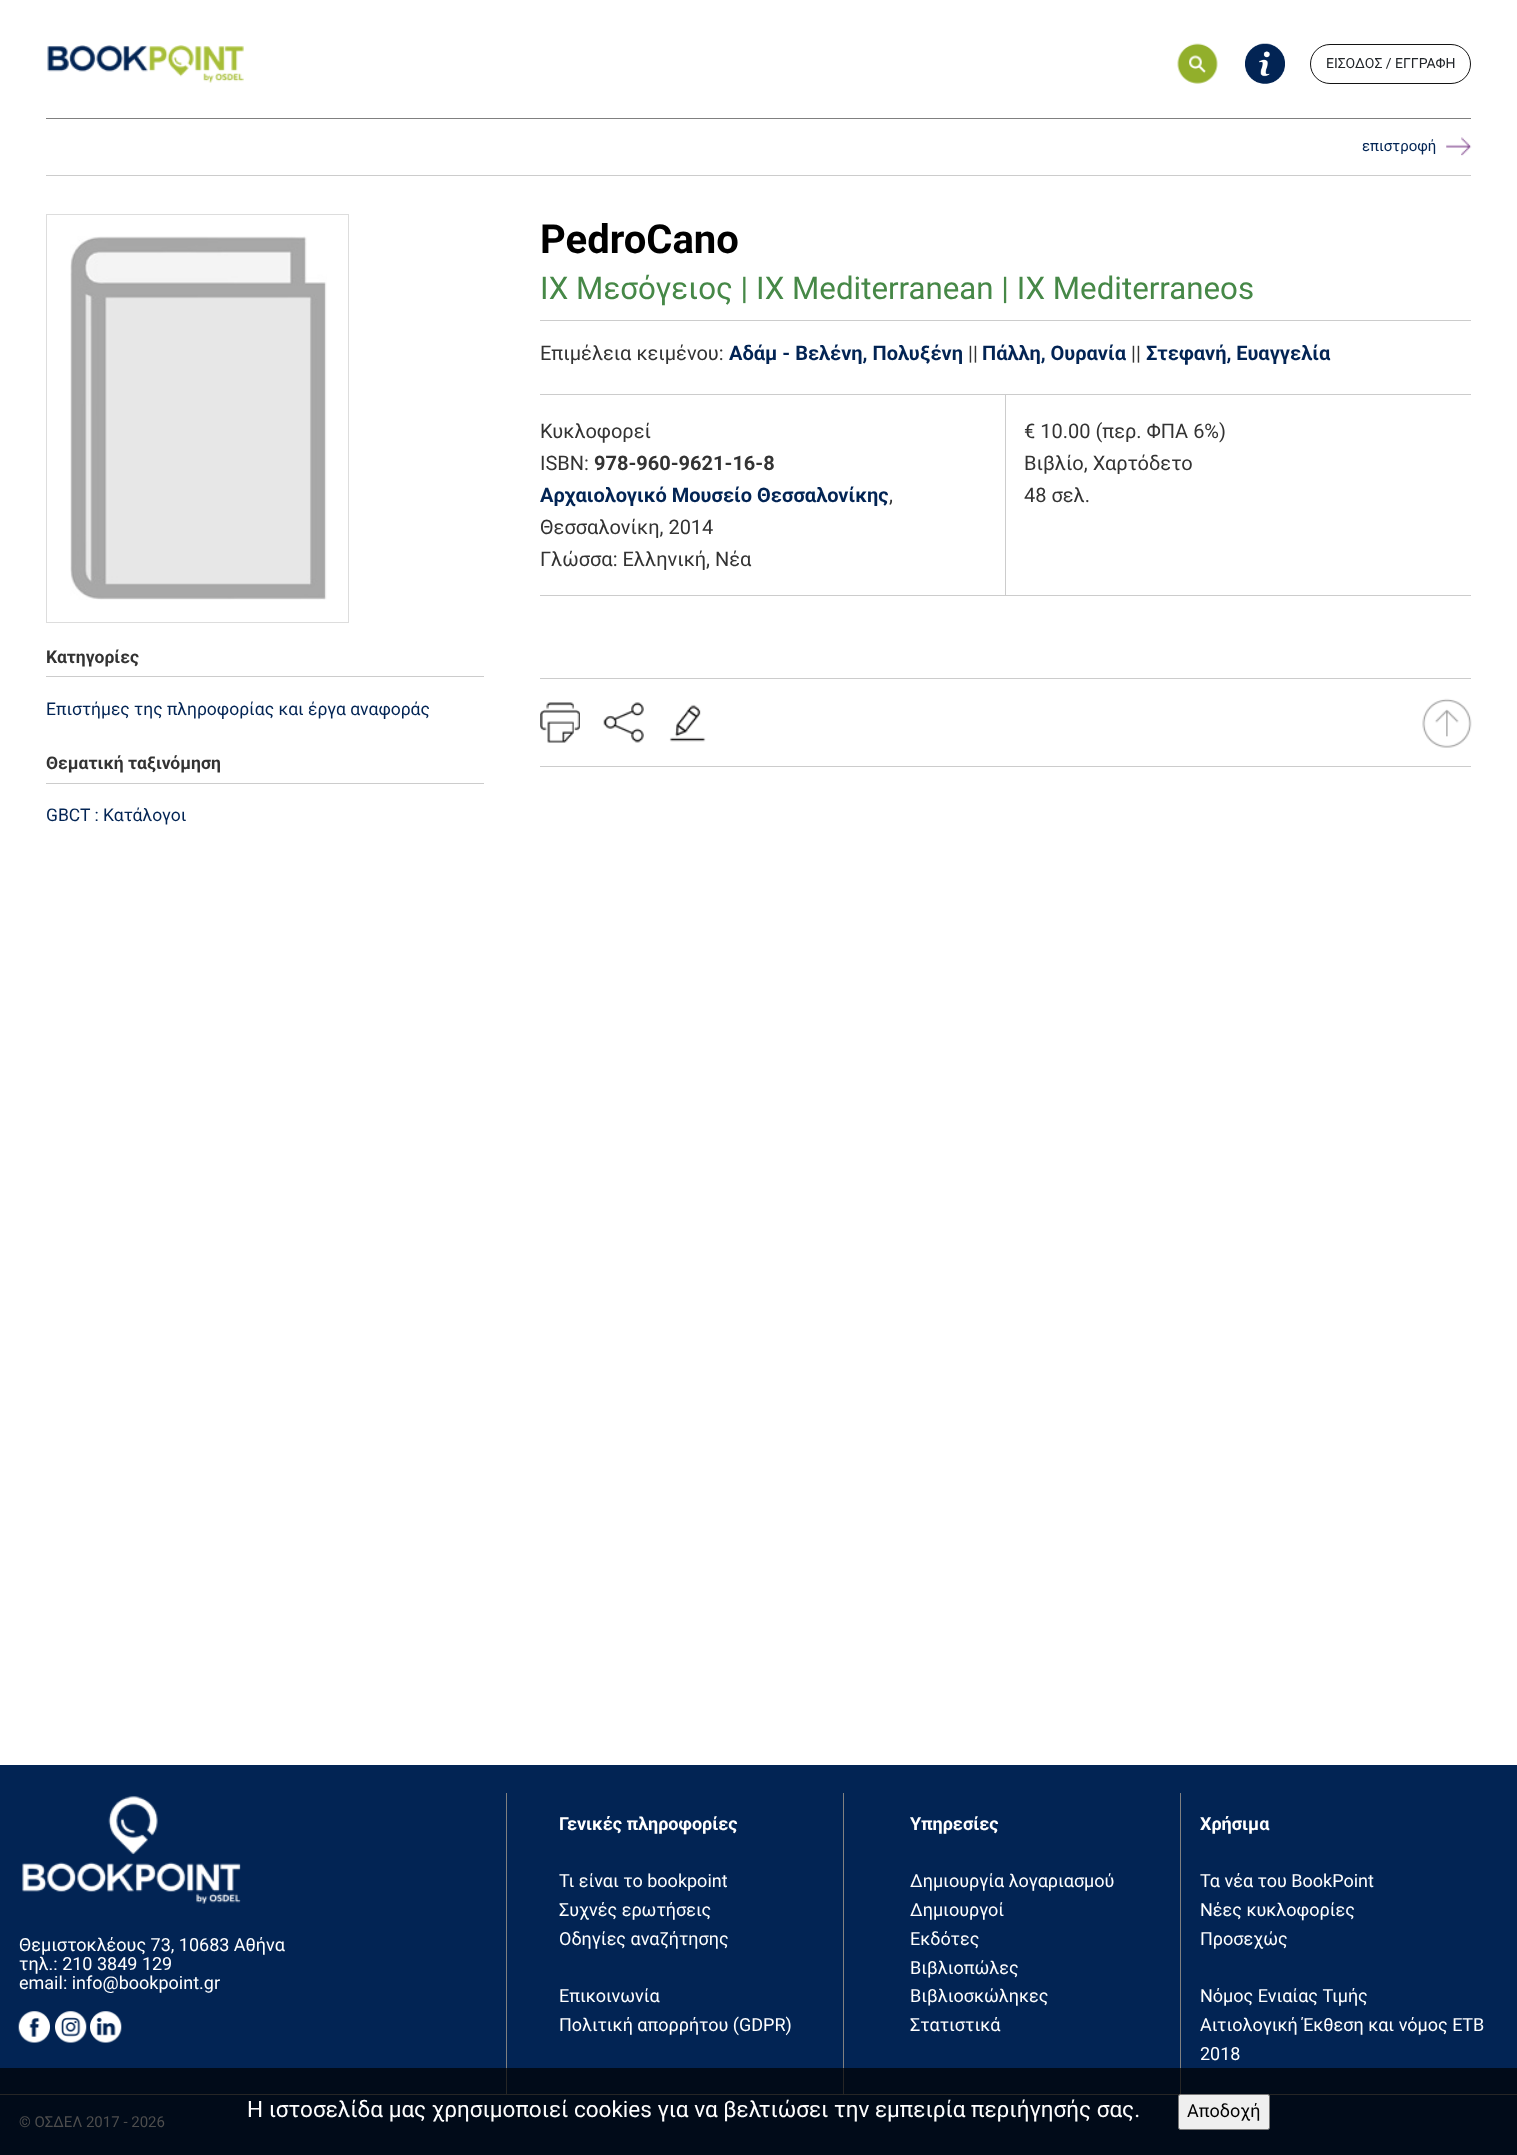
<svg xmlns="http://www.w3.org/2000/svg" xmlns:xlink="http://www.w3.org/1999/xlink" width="1517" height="2155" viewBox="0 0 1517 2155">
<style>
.cls-1{font:14px Roboto;fill:#212529}
.cls-2{font:15px Roboto;fill:#022454}
.cls-3{font:bold 40px Roboto;fill:#000000}
.cls-4{font:31.25px Roboto;fill:#468847}
.cls-5{font:20px Roboto;fill:#333333}
.cls-6{font:bold 20px Roboto;fill:#022454}
.cls-7{font:bold 20px Roboto;fill:#333333}
.cls-8{font:bold 17.5px Roboto;fill:#333333}
.cls-9{font:17.5px Roboto;fill:#022454}
.cls-10{font:18px Roboto;fill:#ffffff}
.cls-11{font:bold 18px Roboto;fill:#ffffff}
.cls-12{font:15px Roboto;fill:#4d4d4d}
.cls-13{font:22.5px Roboto;fill:#ffffff}
.cls-14{font:18px Roboto;fill:#000000}
</style>
<rect width="100%" height="100%" fill="#ffffff"/>
<rect fill="#808080" x="46" y="118" width="1425" height="1"/>
<image xlink:href="image0.png" x="47" y="45" width="197" height="38"/>
<image xlink:href="image1.png" x="1177" y="43" width="41" height="41"/>
<image xlink:href="image2.png" x="1245" y="43" width="40" height="41"/>
<rect fill="none" stroke="#131313" x="1310.5" y="44.5" width="160" height="39" rx="19.5"/>
<image xlink:href="image3.png" x="1446" y="137" width="26" height="19"/>
<rect fill="#cccccc" x="46" y="175" width="1425" height="1"/>
<rect fill="#cccccc" x="540" y="320" width="931" height="1"/>
<rect fill="#cccccc" x="540" y="394" width="931" height="1"/>
<rect fill="#cccccc" x="540" y="595" width="931" height="1"/>
<rect fill="#cccccc" x="1005" y="395" width="1" height="200"/>
<rect fill="#cccccc" x="540" y="678" width="931" height="1"/>
<rect fill="#cccccc" x="540" y="766" width="931" height="1"/>
<image xlink:href="image4.png" x="540" y="702" width="40" height="41"/>
<image xlink:href="image5.png" x="603" y="702" width="41" height="41"/>
<image xlink:href="image6.png" x="669" y="704" width="37" height="38"/>
<image xlink:href="image7.png" x="1422" y="698" width="50" height="50"/>
<rect fill="none" stroke="#dddddd" x="46.5" y="214.5" width="302" height="408"/>
<image xlink:href="image8.png" x="70" y="236" width="257" height="364"/>
<rect fill="#cccccc" x="46" y="676" width="438" height="1"/>
<rect fill="#cccccc" x="46" y="783" width="438" height="1"/>
<rect fill="#022454" x="0" y="1765" width="1517" height="303"/>
<rect fill="#010b19" x="0" y="2068" width="1517" height="87"/>
<image xlink:href="image9.png" x="22" y="1796" width="219" height="108"/>
<image xlink:href="image10.png" x="18" y="2011" width="32" height="32"/>
<image xlink:href="image11.png" x="55" y="2011" width="32" height="32"/>
<image xlink:href="image12.png" x="90" y="2011" width="32" height="32"/>
<rect fill="#808080" x="506" y="1793" width="1" height="275"/>
<rect fill="#262626" x="506" y="2068" width="1" height="26"/>
<rect fill="#808080" x="843" y="1793" width="1" height="275"/>
<rect fill="#262626" x="843" y="2068" width="1" height="26"/>
<rect fill="#808080" x="1180" y="1793" width="1" height="275"/>
<rect fill="#262626" x="1180" y="2068" width="1" height="26"/>
<rect fill="#262626" x="0" y="2094" width="1517" height="1"/>
<rect fill="#efefef" stroke="#767676" x="1178.5" y="2094.5" width="91" height="35" rx="2"/>
<text class="cls-1" x="1326" y="68">ΕΙΣΟΔΟΣ / ΕΓΓΡΑΦΗ</text>
<text class="cls-2" x="1362" y="151">επιστροφή</text>
<text class="cls-3" x="540" y="253">PedroCano</text>
<text class="cls-4" x="540" y="299">IX Μεσόγειος | IX Mediterranean | IX Mediterraneos</text>
<text class="cls-5" x="540" y="360">Επιμέλεια κειμένου:</text>
<text class="cls-6" x="729" y="360">Αδάμ - Βελένη, Πολυξένη</text>
<text class="cls-5" x="968" y="360">||</text>
<text class="cls-6" x="982" y="360">Πάλλη, Ουρανία</text>
<text class="cls-5" x="1131" y="360">||</text>
<text class="cls-6" x="1146" y="360">Στεφανή, Ευαγγελία</text>
<text class="cls-5"><tspan x="540" y="438">Κυκλοφορεί</tspan><tspan x="540" y="470">ISBN:</tspan></text>
<text class="cls-7" x="594" y="470">978-960-9621-16-8</text>
<text class="cls-6" x="540" y="502">Αρχαιολογικό Μουσείο Θεσσαλονίκης</text>
<text class="cls-5" x="889" y="502">,</text>
<text class="cls-5"><tspan x="540" y="534">Θεσσαλονίκη, 2014</tspan><tspan x="540" y="566">Γλώσσα: Ελληνική, Νέα</tspan></text>
<text class="cls-5"><tspan x="1024" y="438">€ 10.00 (περ. ΦΠΑ 6%)</tspan><tspan x="1024" y="470">Βιβλίο, Χαρτόδετο</tspan><tspan x="1024" y="502">48 σελ.</tspan></text>
<text class="cls-8" x="46" y="663">Κατηγορίες</text>
<text class="cls-9" x="46" y="715">Επιστήμες της πληροφορίας και έργα αναφοράς</text>
<text class="cls-8" x="46" y="769">Θεματική ταξινόμηση</text>
<text class="cls-9" x="46" y="821">GBCT : Κατάλογοι</text>
<text class="cls-10"><tspan x="19" y="1951">Θεμιστοκλέους 73, 10683 Αθήνα</tspan><tspan x="19" y="1970">τηλ.: 210 3849 129</tspan><tspan x="19" y="1989">email: info@bookpoint.gr</tspan></text>
<text class="cls-11" x="559" y="1830">Γενικές πληροφορίες</text>
<text class="cls-10"><tspan x="559" y="1887">Τι είναι το bookpoint</tspan><tspan x="559" y="1916">Συχνές ερωτήσεις</tspan><tspan x="559" y="1945">Οδηγίες αναζήτησης</tspan></text>
<text class="cls-10"><tspan x="559" y="2002">Επικοινωνία</tspan><tspan x="559" y="2031">Πολιτική απορρήτου (GDPR)</tspan></text>
<text class="cls-11" x="910" y="1830">Υπηρεσίες</text>
<text class="cls-10"><tspan x="910" y="1887">Δημιουργία λογαριασμού</tspan><tspan x="910" y="1916">Δημιουργοί</tspan><tspan x="910" y="1945">Εκδότες</tspan><tspan x="910" y="1974">Βιβλιοπώλες</tspan><tspan x="910" y="2002">Βιβλιοσκώληκες</tspan><tspan x="910" y="2031">Στατιστικά</tspan></text>
<text class="cls-11" x="1200" y="1830">Χρήσιμα</text>
<text class="cls-10"><tspan x="1200" y="1887">Τα νέα του BookPoint</tspan><tspan x="1200" y="1916">Νέες κυκλοφορίες</tspan><tspan x="1200" y="1945">Προσεχώς</tspan></text>
<text class="cls-10"><tspan x="1200" y="2002">Νόμος Ενιαίας Τιμής</tspan><tspan x="1200" y="2031">Αιτιολογική Έκθεση και νόμος ΕΤΒ</tspan><tspan x="1200" y="2060">2018</tspan></text>
<text class="cls-12" x="19" y="2127">© ΟΣΔΕΛ 2017 - 2026</text>
<text class="cls-13" x="247" y="2117">Η ιστοσελίδα μας χρησιμοποιεί cookies για να βελτιώσει την εμπειρία περιήγησής σας.</text>
<text class="cls-14" x="1187" y="2117">Αποδοχή</text>
</svg>
